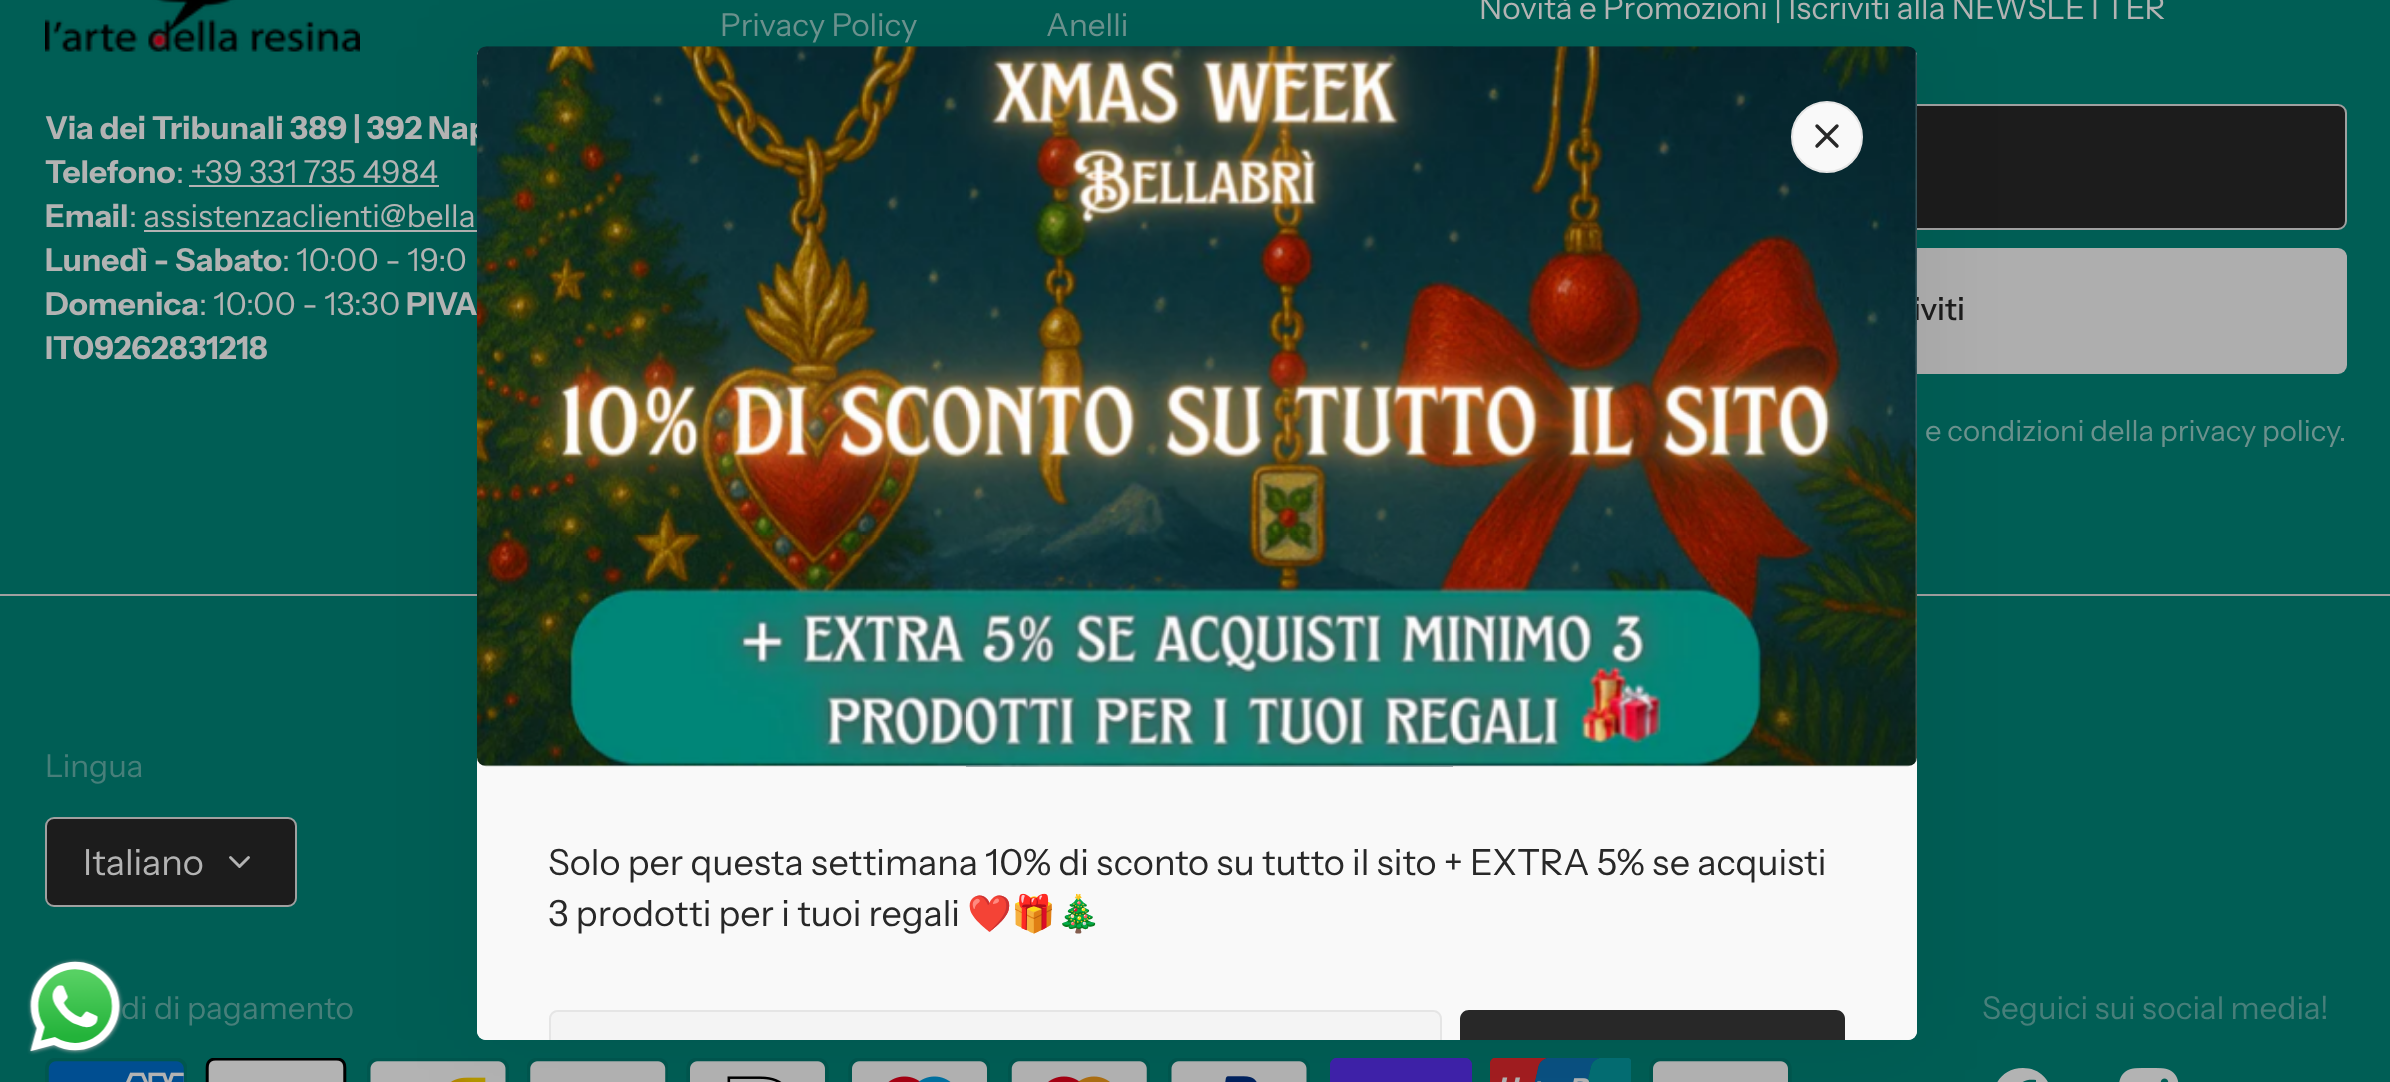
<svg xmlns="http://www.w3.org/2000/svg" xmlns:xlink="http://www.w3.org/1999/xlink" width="2390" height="1082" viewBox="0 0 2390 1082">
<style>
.cls-1{font:31.5px Instrument Sans;fill:#6b918d}
.cls-2{font:31.5px Instrument Sans;fill:#b3b3b3}
.cls-3{font:500 31.5px Instrument Sans;fill:#1c1c1c}
.cls-4{font:29.25px Instrument Sans;fill:#6b918d}
.cls-5{font:bold 31.5px Instrument Sans;fill:#b3b3b3}
.cls-6{font:31.5px Instrument Sans;fill:#477f7a}
.cls-7{font:36px Instrument Sans;fill:#b3b3b3}
.cls-8{font:36px Instrument Sans;fill:#282828}
.cls-9{font:36px Noto Color Emoji;fill:#282828}
</style>
<rect width="100%" height="100%" fill="#005e55"/>
<rect fill="#1c1c1c" stroke="#a0a0a0" stroke-width="2" x="1479" y="105" width="867" height="124" rx="8"/>
<rect fill="#aeaeae" x="1478" y="248" width="869" height="126" rx="9"/>
<image xlink:href="image0.png" x="45" y="0" width="315" height="52"/>
<rect fill="#b3b3b3" x="189" y="185" width="250" height="2"/>
<rect fill="#b3b3b3" x="144" y="230" width="333" height="2"/>
<rect fill="#a0a0a0" x="0" y="594" width="2390" height="2"/>
<rect fill="#1c1c1c" stroke="#a0a0a0" stroke-width="2" x="46" y="818" width="250" height="88" rx="8"/>
<path fill="none" stroke="#b3b3b3" stroke-width="2.9" stroke-linecap="round" stroke-linejoin="round" d="M248.5 857.5L239.5 866.5L230.5 857.5"/>
<image xlink:href="image1.png" x="45" y="1058" width="142" height="24"/>
<image xlink:href="image2.png" x="205" y="1058" width="142" height="24"/>
<image xlink:href="image3.png" x="367" y="1058" width="142" height="24"/>
<image xlink:href="image4.png" x="527" y="1058" width="141" height="24"/>
<image xlink:href="image5.png" x="686" y="1058" width="143" height="24"/>
<image xlink:href="image6.png" x="848" y="1058" width="142" height="24"/>
<image xlink:href="image7.png" x="1008" y="1058" width="142" height="24"/>
<image xlink:href="image8.png" x="1168" y="1058" width="142" height="24"/>
<image xlink:href="image9.png" x="1330" y="1058" width="142" height="24"/>
<image xlink:href="image10.png" x="1490" y="1058" width="141" height="24"/>
<image xlink:href="image11.png" x="1649" y="1058" width="143" height="24"/>
<path fill="#b3b3b3" d="M2023 1068C1986 1068 1982 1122 2018 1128V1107H2010V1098H2018V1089C2020 1080 2029 1079 2036 1080V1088C2026 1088 2027 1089 2027 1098H2036L2034 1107H2027V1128C2063 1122 2059 1068 2023 1068Z"/>
<image xlink:href="image12.png" x="2119" y="1068" width="60" height="14"/>
<rect fill="#000000" fill-opacity="0.07" filter="blur(45px)" x="477" y="47" width="1440" height="993" rx="9"/>
<text class="cls-1" x="720" y="36">Privacy Policy</text>
<text class="cls-1" x="1046" y="36">Anelli</text>
<text class="cls-2" x="1479" y="19">Novità e Promozioni | Iscriviti alla NEWSLETTER</text>
<text class="cls-3" x="1913" y="320">iviti</text>
<text class="cls-4" x="1925" y="441">e condizioni della privacy policy.</text>
<text class="cls-5"><tspan x="45" y="139">Via dei Tribunali 389 | 392 Nap</tspan><tspan x="45" y="183">Telefono</tspan></text>
<text class="cls-2" x="176" y="183">: +39 331 735 4984</text>
<text class="cls-5" x="45" y="227">Email</text>
<text class="cls-2" x="129" y="227">: assistenzaclienti@bella</text>
<text class="cls-5" x="45" y="271">Lunedì - Sabato</text>
<text class="cls-2" x="282" y="271">: 10:00 - 19:0</text>
<text class="cls-5" x="45" y="315">Domenica</text>
<text class="cls-2" x="199" y="315">: 10:00 - 13:30</text>
<text class="cls-5" x="406" y="315">PIVA</text>
<text class="cls-5" x="45" y="359">IT09262831218</text>
<text class="cls-6" x="45" y="777">Lingua</text>
<text class="cls-7" x="83" y="875">Italiano</text>
<text class="cls-6" x="121" y="1019">di di pagamento</text>
<text class="cls-6" x="1982" y="1019">Seguici sui social media!</text>
<rect fill="#f9f9f9" x="477" y="47" width="1440" height="993" rx="9"/>
<image xlink:href="image13.png" x="477" y="46" width="1440" height="721"/>
<path fill="#f9f9f9" d="M477 767H1917V1031C1917 1036 1913 1040 1908 1040H486C481 1040 477 1036 477 1031Z"/>
<circle fill="#f9f9f9" stroke="#e5e5e5" stroke-width="2" cx="1827" cy="137" r="35"/>
<path fill="none" stroke="#282828" stroke-width="3.4" stroke-linecap="round" stroke-linejoin="round" d="M1837 126L1817 146M1837 146L1817 126"/>
<text class="cls-8"><tspan x="548" y="875">Solo per questa settimana 10% di sconto su tutto il sito + EXTRA 5% se acquisti</tspan><tspan x="548" y="926">3 prodotti per i tuoi regali</tspan></text>
<text class="cls-9" x="967" y="926">❤️🎁🎄</text>
<path fill="#f4f4f4" d="M558 1010H1433C1438 1010 1442 1014 1442 1019V1040H549V1019C549 1014 553 1010 558 1010Z"/>
<path fill="#e5e5e5" d="M558 1010C553 1010 549 1014 549 1019V1040H551V1019C551 1015 554 1012 558 1012H1433C1437 1012 1440 1015 1440 1019V1040H1442V1019C1442 1014 1438 1010 1433 1010Z"/>
<path fill="#282828" d="M1469 1010H1836C1841 1010 1845 1014 1845 1019V1040H1460V1019C1460 1014 1464 1010 1469 1010Z"/>
<image xlink:href="image14.png" x="27" y="958" width="97" height="97"/>
</svg>
